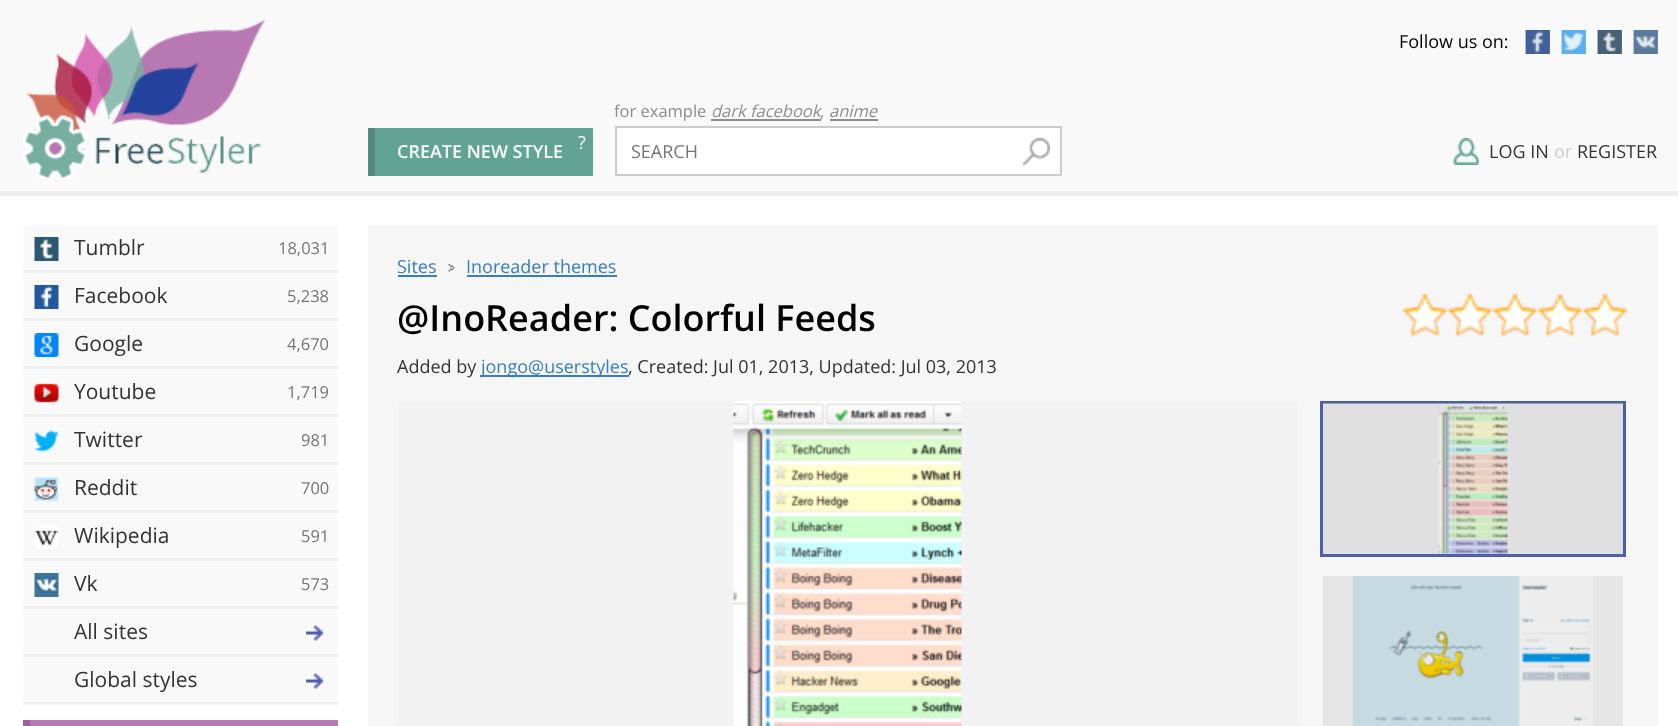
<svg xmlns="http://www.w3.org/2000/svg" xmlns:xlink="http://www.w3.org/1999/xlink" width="1678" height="726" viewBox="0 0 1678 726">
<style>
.cls-1{font:18px Open Sans;fill:#000000}
.cls-2{font:600 18px Open Sans;fill:#ffffff}
.cls-3{font:18px Open Sans;fill:#ffffff}
.cls-4{font:16.5px Open Sans;fill:#8d8d8d}
.cls-5{font:italic 16.5px Open Sans;fill:#8d8d8d}
.cls-6{font:18px Open Sans;fill:#757575}
.cls-7{font:18px Open Sans;fill:#333333}
.cls-8{font:18px Open Sans;fill:#cdcdcd}
.cls-9{font:21px Open Sans;fill:#333333}
.cls-10{font:16.5px Open Sans;fill:#757575}
.cls-11{font:18px Open Sans;fill:#367dc6}
.cls-12{font:600 36px Open Sans;fill:#000000}
</style>
<defs>
<clipPath id="clip1"><rect x="632" y="138" width="384" height="26"/></clipPath>
</defs>
<rect width="100%" height="100%" fill="#ffffff"/>
<rect fill="#f9f9f9" x="0" y="0" width="1678" height="191"/>
<rect fill="#eeeeee" x="0" y="191" width="1678" height="5"/>
<image xlink:href="image0.png" x="23" y="19" width="243" height="160"/>
<rect fill="#6179ab" x="1526" y="30" width="24" height="24"/>
<image xlink:href="image1.png" x="1525" y="30" width="25" height="24"/>
<rect fill="#76bbf0" x="1562" y="30" width="24" height="24"/>
<image xlink:href="image2.png" x="1561" y="30" width="25" height="24"/>
<rect fill="#647a8b" x="1598" y="30" width="24" height="24"/>
<image xlink:href="image3.png" x="1597" y="30" width="25" height="24"/>
<rect fill="#748fac" x="1634" y="30" width="24" height="24"/>
<image xlink:href="image4.png" x="1633" y="30" width="25" height="24"/>
<rect fill="#62a494" x="375" y="128" width="218" height="48"/>
<rect fill="#538c7e" x="368" y="128" width="7" height="48"/>
<rect fill="#8d8d8d" x="711" y="119" width="110" height="2"/>
<rect fill="#8d8d8d" x="830" y="119" width="48" height="2"/>
<rect fill="#ffffff" stroke="#cccccc" stroke-width="2" x="616" y="127" width="445" height="48"/>
<image xlink:href="image5.png" x="1023" y="138" width="27" height="27"/>
<image xlink:href="image6.png" x="1453" y="138" width="26" height="27"/>
<rect fill="#f9f9f9" x="23" y="225" width="315" height="45"/>
<rect fill="#efefef" x="23" y="270" width="315" height="3"/>
<image xlink:href="image7.png" x="34" y="237" width="25" height="24"/>
<rect fill="#f9f9f9" x="23" y="273" width="315" height="45"/>
<rect fill="#efefef" x="23" y="318" width="315" height="3"/>
<image xlink:href="image8.png" x="34" y="285" width="25" height="24"/>
<rect fill="#f9f9f9" x="23" y="321" width="315" height="45"/>
<rect fill="#efefef" x="23" y="366" width="315" height="3"/>
<image xlink:href="image9.png" x="34" y="333" width="25" height="24"/>
<rect fill="#f9f9f9" x="23" y="369" width="315" height="45"/>
<rect fill="#efefef" x="23" y="414" width="315" height="3"/>
<image xlink:href="image10.png" x="34" y="383" width="25" height="22"/>
<rect fill="#f9f9f9" x="23" y="417" width="315" height="45"/>
<rect fill="#efefef" x="23" y="462" width="315" height="3"/>
<image xlink:href="image11.png" x="34" y="430" width="25" height="22"/>
<rect fill="#f9f9f9" x="23" y="465" width="315" height="45"/>
<rect fill="#efefef" x="23" y="510" width="315" height="3"/>
<image xlink:href="image12.png" x="34" y="477" width="25" height="24"/>
<rect fill="#f9f9f9" x="23" y="513" width="315" height="45"/>
<rect fill="#efefef" x="23" y="558" width="315" height="3"/>
<image xlink:href="image13.png" x="34" y="525" width="25" height="24"/>
<rect fill="#f9f9f9" x="23" y="561" width="315" height="45"/>
<rect fill="#efefef" x="23" y="606" width="315" height="3"/>
<image xlink:href="image14.png" x="34" y="573" width="25" height="24"/>
<rect fill="#f9f9f9" x="23" y="609" width="315" height="45"/>
<rect fill="#efefef" x="23" y="654" width="315" height="3"/>
<image xlink:href="image15.png" x="306" y="625" width="18" height="16"/>
<rect fill="#f9f9f9" x="23" y="657" width="315" height="45"/>
<rect fill="#efefef" x="23" y="702" width="315" height="3"/>
<image xlink:href="image15.png" x="306" y="673" width="18" height="16"/>
<rect fill="#b878b2" x="23" y="720" width="315" height="6"/>
<rect fill="#a05f9a" x="23" y="720" width="7" height="6"/>
<rect fill="#f6f6f6" x="368" y="225" width="1290" height="501"/>
<rect fill="#e5e5e5" x="1323" y="576" width="300" height="150"/>
<rect fill="#367dc6" x="398" y="275" width="39" height="2"/>
<image xlink:href="image16.png" x="448" y="264" width="7" height="8"/>
<rect fill="#367dc6" x="467" y="275" width="150" height="2"/>
<image xlink:href="image17.png" x="1402" y="294" width="226" height="44"/>
<rect fill="#367dc6" x="480" y="375" width="149" height="2"/>
<rect fill="#f2f2f2" x="398" y="401" width="900" height="325"/>
<image xlink:href="image18.png" x="733" y="401" width="229" height="325"/>
<rect fill="none" stroke="#4a60a8" stroke-width="3" x="1321.5" y="402.5" width="303" height="153"/>
<image xlink:href="image19.png" x="1323" y="403" width="300" height="151"/>
<rect fill="#000000" fill-opacity="0.07" x="1323" y="403" width="300" height="151"/>
<image xlink:href="image20.png" x="1352" y="576" width="241" height="150"/>
<text class="cls-1" x="1399" y="48">Follow us on:</text>
<text class="cls-2" x="397" y="158">CREATE NEW STYLE</text>
<text class="cls-3" x="578" y="149">?</text>
<text class="cls-4" x="614" y="117">for example</text>
<text class="cls-5" x="711" y="117">dark facebook</text>
<text class="cls-5" x="829" y="117">anime</text>
<text class="cls-4" x="820" y="117">,</text>
<g clip-path="url(#clip1)">
<text class="cls-6" x="631" y="158">SEARCH</text>
</g>
<text class="cls-7" x="1489" y="158">LOG IN</text>
<text class="cls-8" x="1554" y="158">or</text>
<text class="cls-7" x="1577" y="158">REGISTER</text>
<text class="cls-9" x="74" y="255">Tumblr</text>
<text class="cls-10" x="278" y="254">18,031</text>
<text class="cls-9" x="74" y="303">Facebook</text>
<text class="cls-10" x="287" y="302">5,238</text>
<text class="cls-9" x="74" y="351">Google</text>
<text class="cls-10" x="287" y="350">4,670</text>
<text class="cls-9" x="74" y="399">Youtube</text>
<text class="cls-10" x="287" y="398">1,719</text>
<text class="cls-9" x="74" y="447">Twitter</text>
<text class="cls-10" x="301" y="446">981</text>
<text class="cls-9" x="74" y="495">Reddit</text>
<text class="cls-10" x="301" y="494">700</text>
<text class="cls-9" x="74" y="543">Wikipedia</text>
<text class="cls-10" x="301" y="542">591</text>
<text class="cls-9" x="74" y="591">Vk</text>
<text class="cls-10" x="301" y="590">573</text>
<text class="cls-9" x="74" y="639">All sites</text>
<text class="cls-9" x="74" y="687">Global styles</text>
<text class="cls-11" x="397" y="273">Sites</text>
<text class="cls-11" x="466" y="273">Inoreader themes</text>
<text class="cls-12" x="397" y="331">@InoReader: Colorful Feeds</text>
<text class="cls-7" x="397" y="373">Added by</text>
<text class="cls-11" x="481" y="373">jongo@userstyles</text>
<text class="cls-7" x="628" y="373">, Created: Jul 01, 2013, Updated: Jul 03, 2013</text>
</svg>
